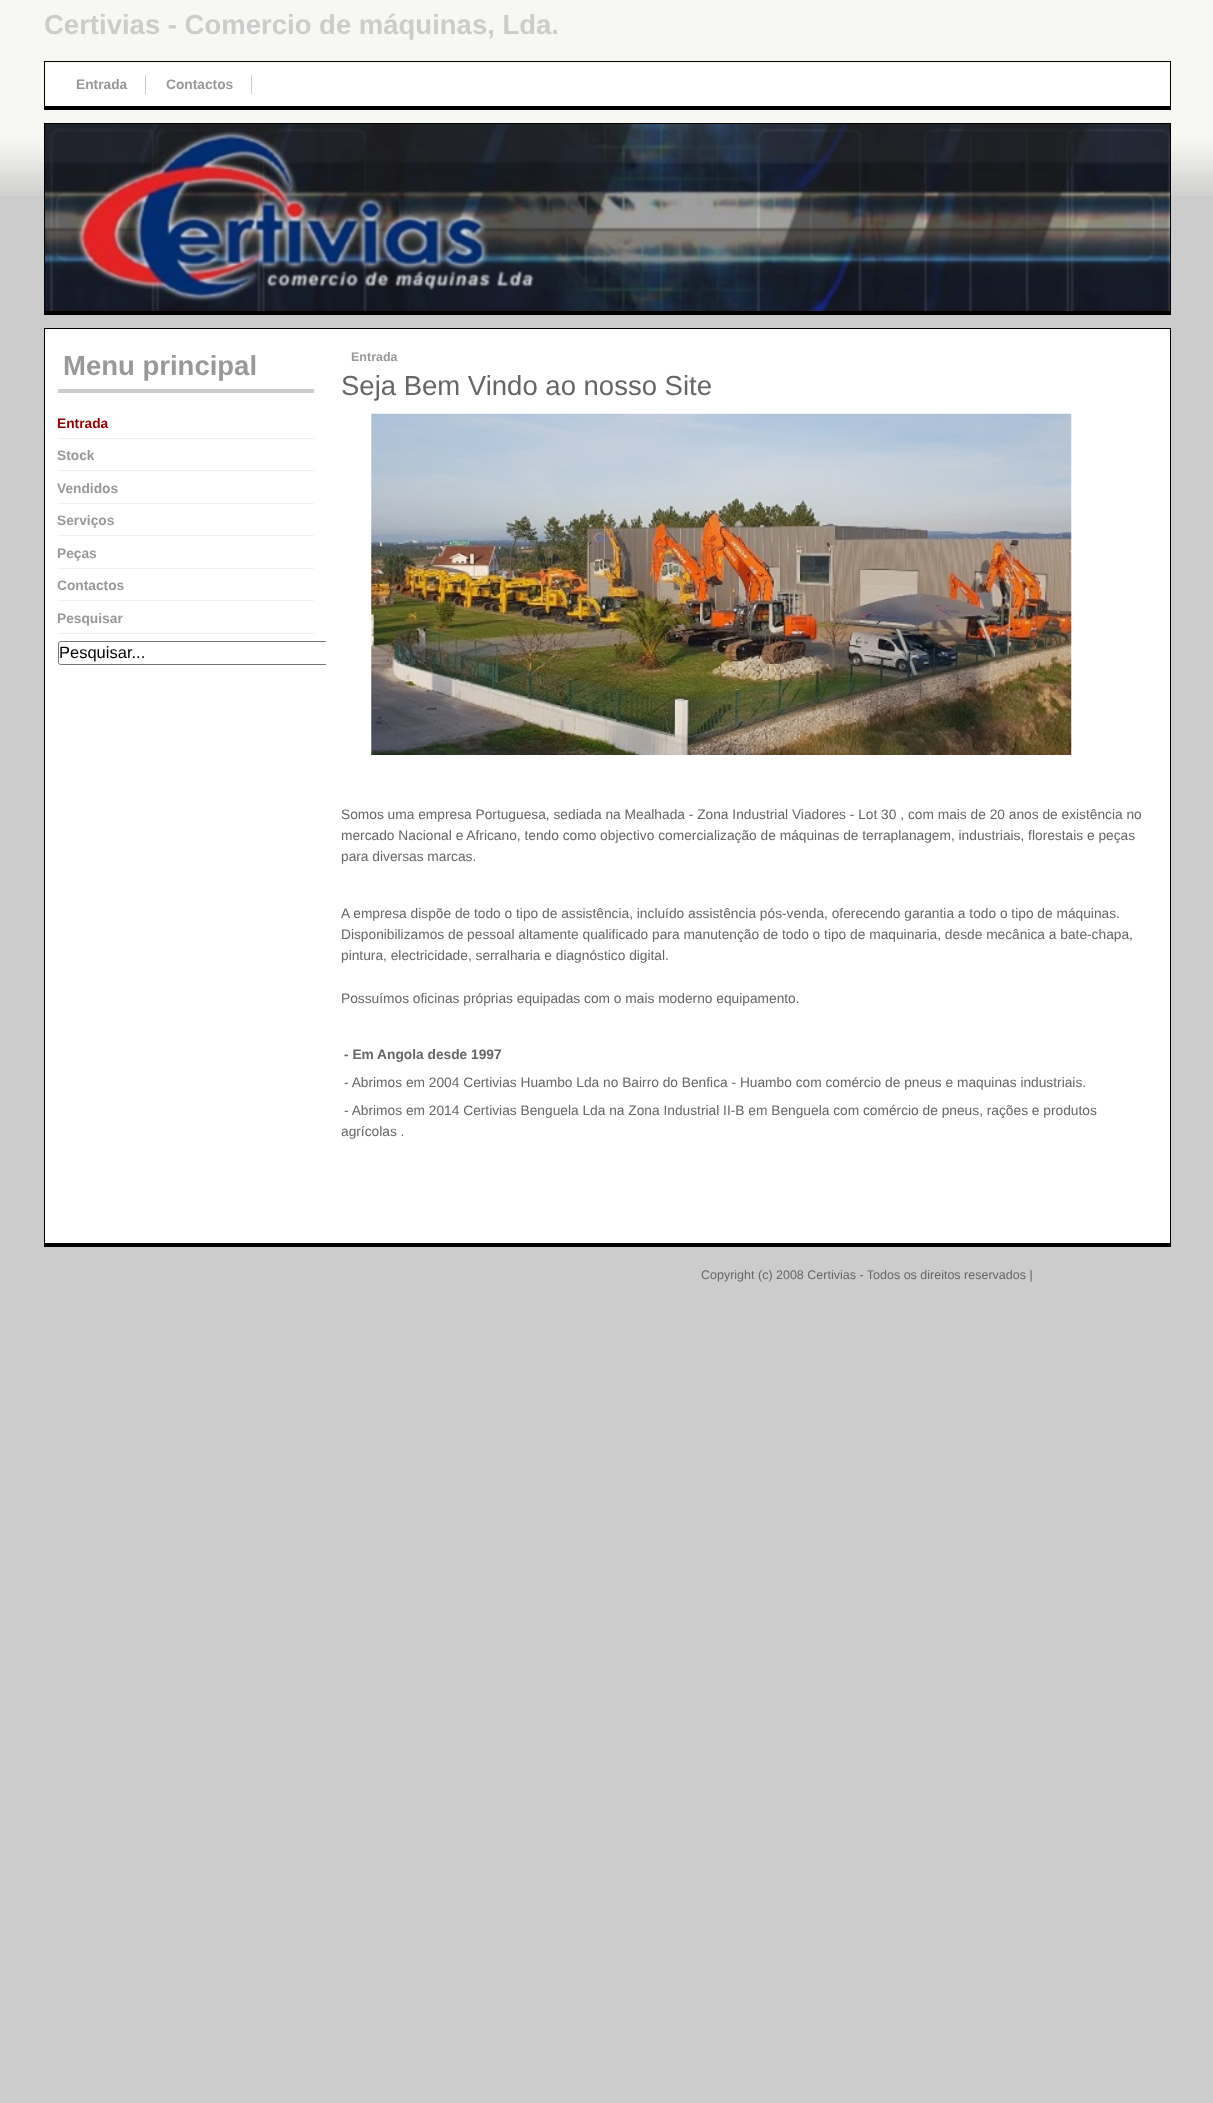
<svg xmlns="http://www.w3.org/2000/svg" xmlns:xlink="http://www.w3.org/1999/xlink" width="1213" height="2103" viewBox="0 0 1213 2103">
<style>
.cls-1{font:bold 27.5px Liberation Sans;fill:#cccccc}
.cls-2{font:bold 13.75px Liberation Sans;fill:#999999}
.cls-3{font:bold 27.5px Liberation Sans;fill:#999999}
.cls-4{font:bold 13.75px Liberation Sans;fill:#990000}
.cls-5{font:16.5px Liberation Sans;fill:#000000}
.cls-6{font:bold 12.5px Liberation Sans;fill:#999999}
.cls-7{font:27.5px Liberation Sans;fill:#666666}
.cls-8{font:13.75px Liberation Sans;fill:#666666}
.cls-9{font:bold 13.75px Liberation Sans;fill:#666666}
.cls-10{font:12.5px Liberation Sans;fill:#666666}
</style>
<defs>
<clipPath id="clip1"><rect x="45" y="329" width="281" height="355"/></clipPath>
</defs>
<rect width="100%" height="100%" fill="#cccccc"/>
<image xlink:href="image0.png" x="0" y="0" width="1213" height="196"/>
<rect fill="#ffffff" x="45" y="63" width="1125" height="43"/>
<rect fill="#000000" x="44" y="61" width="1127" height="1"/>
<rect fill="#000000" x="1170" y="61" width="1" height="49"/>
<rect fill="#000000" x="44" y="106" width="1127" height="4"/>
<rect fill="#000000" x="44" y="61" width="1" height="49"/>
<rect fill="#cccccc" x="145" y="75" width="1" height="19"/>
<rect fill="#cccccc" x="251" y="75" width="1" height="19"/>
<image xlink:href="image1.png" x="45" y="124" width="1125" height="187"/>
<rect fill="#000000" x="44" y="123" width="1127" height="1"/>
<rect fill="#000000" x="1170" y="123" width="1" height="192"/>
<rect fill="#000000" x="44" y="311" width="1127" height="4"/>
<rect fill="#000000" x="44" y="123" width="1" height="192"/>
<rect fill="#ffffff" x="45" y="329" width="1125" height="914"/>
<rect fill="#000000" x="44" y="328" width="1127" height="1"/>
<rect fill="#000000" x="1170" y="328" width="1" height="918"/>
<rect fill="#000000" x="44" y="1243" width="1127" height="4"/>
<rect fill="#000000" x="44" y="328" width="1" height="918"/>
<rect fill="#cccccc" x="58" y="389" width="256" height="4"/>
<rect fill="#efefef" x="58" y="438" width="256" height="1"/>
<rect fill="#efefef" x="58" y="470" width="256" height="1"/>
<rect fill="#efefef" x="58" y="503" width="256" height="1"/>
<rect fill="#efefef" x="58" y="535" width="256" height="1"/>
<rect fill="#efefef" x="58" y="568" width="256" height="1"/>
<rect fill="#efefef" x="58" y="600" width="256" height="1"/>
<rect fill="#efefef" x="58" y="633" width="256" height="1"/>
<image xlink:href="image2.png" x="371" y="413" width="701" height="342"/>
<g clip-path="url(#clip1)">
<rect fill="none" stroke="#767676" x="58.5" y="641.5" width="315" height="23" rx="2"/>
</g>
<text class="cls-1" x="44" y="34">Certivias - Comercio de máquinas, Lda.</text>
<text class="cls-2" x="76" y="89">Entrada</text>
<text class="cls-2" x="166" y="89">Contactos</text>
<text class="cls-3" x="63" y="375">Menu principal</text>
<text class="cls-4" x="57" y="428">Entrada</text>
<text class="cls-2" x="57" y="460">Stock</text>
<text class="cls-2" x="57" y="493">Vendidos</text>
<text class="cls-2" x="57" y="525">Serviços</text>
<text class="cls-2" x="57" y="558">Peças</text>
<text class="cls-2" x="57" y="590">Contactos</text>
<text class="cls-2" x="57" y="623">Pesquisar</text>
<text class="cls-5" x="59" y="658">Pesquisar...</text>
<text class="cls-6" x="351" y="361">Entrada</text>
<text class="cls-7" x="341" y="395">Seja Bem Vindo ao nosso Site</text>
<text class="cls-8"><tspan x="341" y="819">Somos uma empresa Portuguesa, sediada na Mealhada - Zona Industrial Viadores - Lot 30 , com mais de 20 anos de existência no</tspan><tspan x="341" y="840">mercado Nacional e Africano, tendo como objectivo comercialização de máquinas de terraplanagem, industriais, florestais e peças</tspan><tspan x="341" y="861">para diversas marcas.</tspan></text>
<text class="cls-8"><tspan x="341" y="918">A empresa dispõe de todo o tipo de assistência, incluído assistência pós-venda, oferecendo garantia a todo o tipo de máquinas.</tspan><tspan x="341" y="939">Disponibilizamos de pessoal altamente qualificado para manutenção de todo o tipo de maquinaria, desde mecânica a bate-chapa,</tspan><tspan x="341" y="960">pintura, electricidade, serralharia e diagnóstico digital.</tspan></text>
<text class="cls-8" x="341" y="1003">Possuímos oficinas próprias equipadas com o mais moderno equipamento.</text>
<text class="cls-9" x="344" y="1059">- Em Angola desde 1997</text>
<text class="cls-8" x="344" y="1087">- Abrimos em 2004 Certivias Huambo Lda no Bairro do Benfica - Huambo com comércio de pneus e maquinas industriais.</text>
<text class="cls-8" x="344" y="1115">- Abrimos em 2014 Certivias Benguela Lda na Zona Industrial II-B em Benguela com comércio de pneus, rações e produtos</text>
<text class="cls-8" x="341" y="1136">agrícolas .</text>
<text class="cls-10" x="701" y="1279">Copyright (c) 2008 Certivias - Todos os direitos reservados |</text>
</svg>
